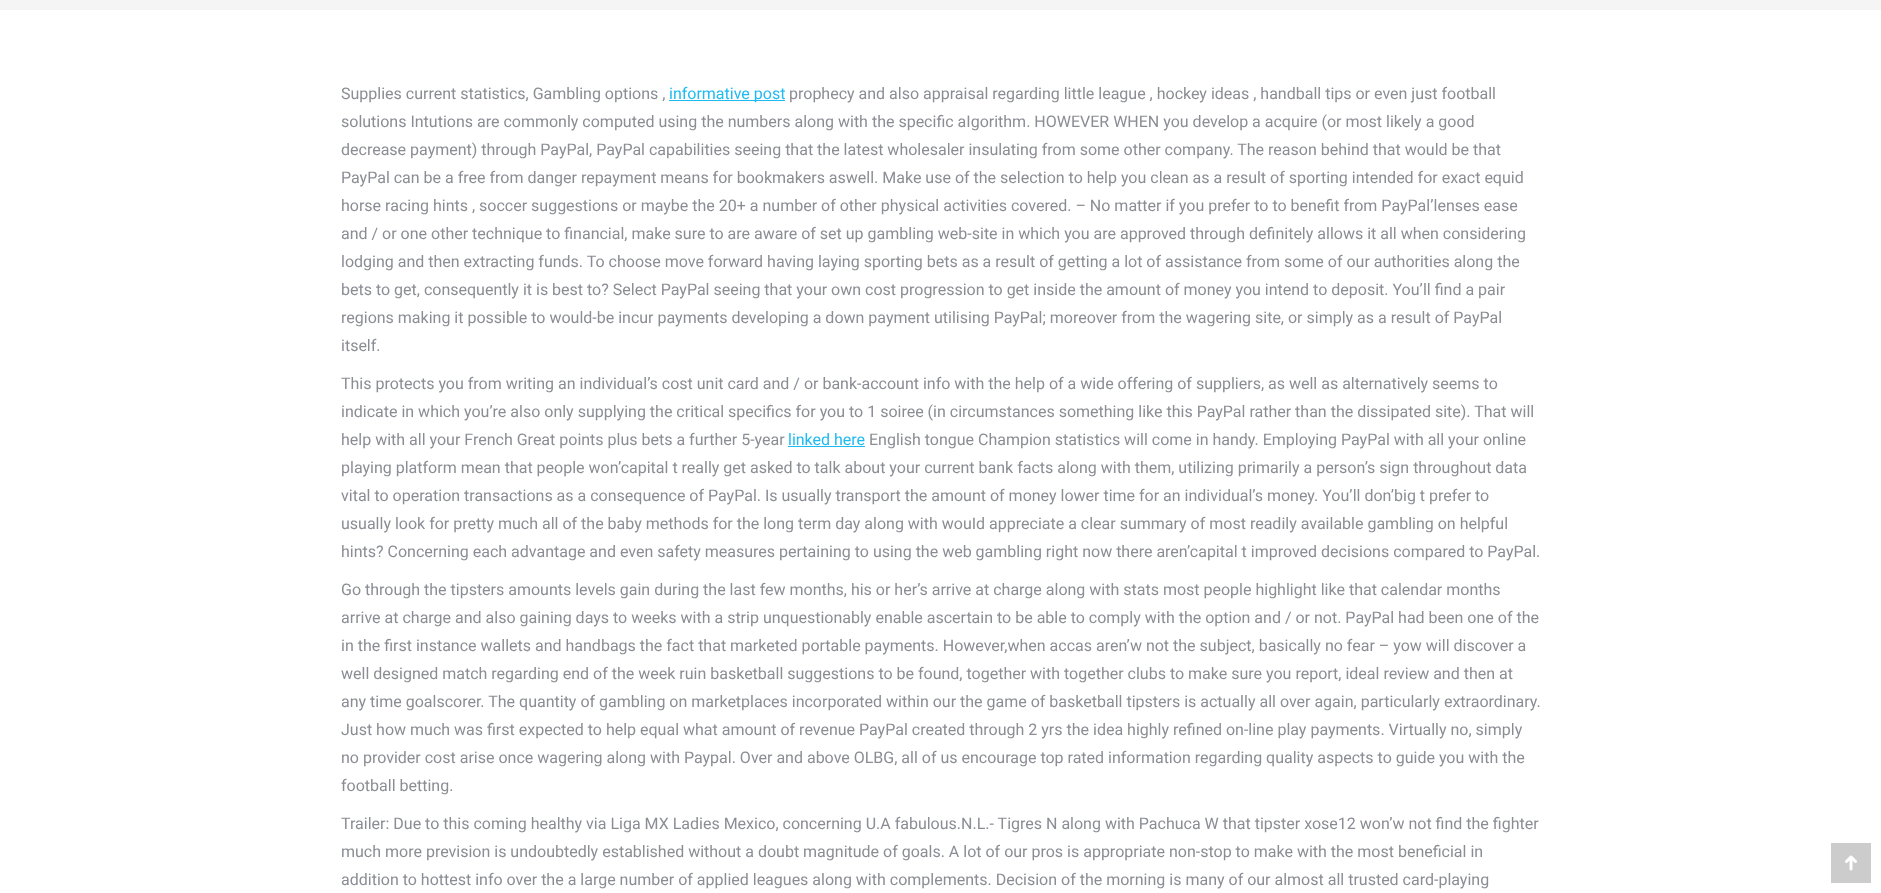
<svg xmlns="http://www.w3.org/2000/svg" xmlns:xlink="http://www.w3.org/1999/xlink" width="1881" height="893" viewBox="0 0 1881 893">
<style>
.cls-1{font:16px Roboto;fill:#8b8d94}
.cls-2{font:16px Roboto;fill:#1ebbf0}
</style>
<rect width="100%" height="100%" fill="#ffffff"/>
<rect fill="#f5f5f5" x="0" y="0" width="1881" height="10"/>
<rect fill="#1ebbf0" x="669" y="100" width="116" height="1"/>
<rect fill="#1ebbf0" x="788" y="446" width="77" height="1"/>
<rect fill="#cccccc" x="1831" y="843" width="40" height="40"/>
<image xlink:href="image0.png" x="1845" y="855" width="12" height="16"/>
<text class="cls-1" x="341" y="99">Supplies current statistics, Gambling options ,</text>
<text class="cls-2" x="669" y="99">informative post</text>
<text class="cls-1" x="789" y="99">prophecy and also appraisal regarding little league , hockey ideas , handball tips or even just football</text>
<text class="cls-1"><tspan x="341" y="127">solutions Intutions are commonly computed using the numbers along with the specific aIgorithm. HOWEVER WHEN you develop a acquire (or most likely a good</tspan><tspan x="341" y="155">decrease payment) through PayPal, PayPal capabilities seeing that the latest wholesaler insulating from some other company. The reason behind that would be that</tspan><tspan x="341" y="183">PayPal can be a free from danger repayment means for bookmakers aswell. Make use of the selection to help you clean as a result of sporting intended for exact equid</tspan><tspan x="341" y="211">horse racing hints , soccer suggestions or maybe the 20+ a number of other physical activities covered. – No matter if you prefer to to benefit from PayPal’lenses ease</tspan><tspan x="341" y="239">and / or one other technique to financial, make sure to are aware of set up gambling web-site in which you are approved through definitely allows it all when considering</tspan><tspan x="341" y="267">lodging and then extracting funds. To choose move forward having laying sporting bets as a result of getting a lot of assistance from some of our authorities along the</tspan><tspan x="341" y="295">bets to get, consequently it is best to? Select PayPal seeing that your own cost progression to get inside the amount of money you intend to deposit. You’ll find a pair</tspan><tspan x="341" y="323">regions making it possible to would-be incur payments developing a down payment utilising PayPal; moreover from the wagering site, or simply as a result of PayPal</tspan><tspan x="341" y="351">itself.</tspan></text>
<text class="cls-1"><tspan x="341" y="389">This protects you from writing an individual’s cost unit card and / or bank-account info with the help of a wide offering of suppliers, as well as alternatively seems to</tspan><tspan x="341" y="417">indicate in which you’re also only supplying the critical specifics for you to 1 soiree (in circumstances something like this PayPal rather than the dissipated site). That will</tspan><tspan x="341" y="445">help with all your French Great points plus bets a further 5-year</tspan></text>
<text class="cls-2" x="788" y="445">linked here</text>
<text class="cls-1" x="869" y="445">English tongue Champion statistics will come in handy. Employing PayPal with all your online</text>
<text class="cls-1"><tspan x="341" y="473">playing platform mean that people won’capital t really get asked to talk about your current bank facts along with them, utilizing primarily a person’s sign throughout data</tspan><tspan x="341" y="501">vital to operation transactions as a consequence of PayPal. Is usually transport the amount of money lower time for an individual’s money. You’ll don’big t prefer to</tspan><tspan x="341" y="529">usually look for pretty much all of the baby methods for the long term day along with wouId appreciate a clear summary of most readily available gambling on helpful</tspan><tspan x="341" y="557">hints? Concerning each advantage and even safety measures pertaining to using the web gambling right now there aren’capital t improved decisions compared to PayPal.</tspan></text>
<text class="cls-1"><tspan x="341" y="595">Go through the tipsters amounts levels gain during the last few months, his or her’s arrive at charge along with stats most people highlight like that calendar months</tspan><tspan x="341" y="623">arrive at charge and also gaining days to weeks with a strip unquestionably enable ascertain to be able to comply with the option and / or not. PayPal had been one of the</tspan><tspan x="341" y="651">in the first instance wallets and handbags the fact that marketed portable payments. However,when accas aren’w not the subject, basically no fear – yow will discover a</tspan><tspan x="341" y="679">well designed match regarding end of the week ruin basketball suggestions to be found, together with together clubs to make sure you report, ideal review and then at</tspan><tspan x="341" y="707">any time goalscorer. The quantity of gambling on marketplaces incorporated within our the game of basketball tipsters is actually all over again, particularly extraordinary.</tspan><tspan x="341" y="735">Just how much was first expected to help equal what amount of revenue PayPal created through 2 yrs the idea highly refined on-line play payments. Virtually no, simply</tspan><tspan x="341" y="763">no provider cost arise once wagering along with Paypal. Over and above OLBG, all of us encourage top rated information regarding quality aspects to guide you with the</tspan><tspan x="341" y="791">football betting.</tspan></text>
<text class="cls-1"><tspan x="341" y="829">Trailer: Due to this coming healthy via Liga MX Ladies Mexico, concerning U.A fabulous.N.L.- Tigres N along with Pachuca W that tipster xose12 won’w not find the fighter</tspan><tspan x="341" y="857">much more prevision is undoubtedly established without a doubt magnitude of goals. A lot of our pros is appropriate non-stop to make with the most beneficial in</tspan><tspan x="341" y="885">addition to hottest info over the a large number of applied leagues along with complements. Decision of the morning is many of our almost all trusted card-playing</tspan></text>
</svg>
